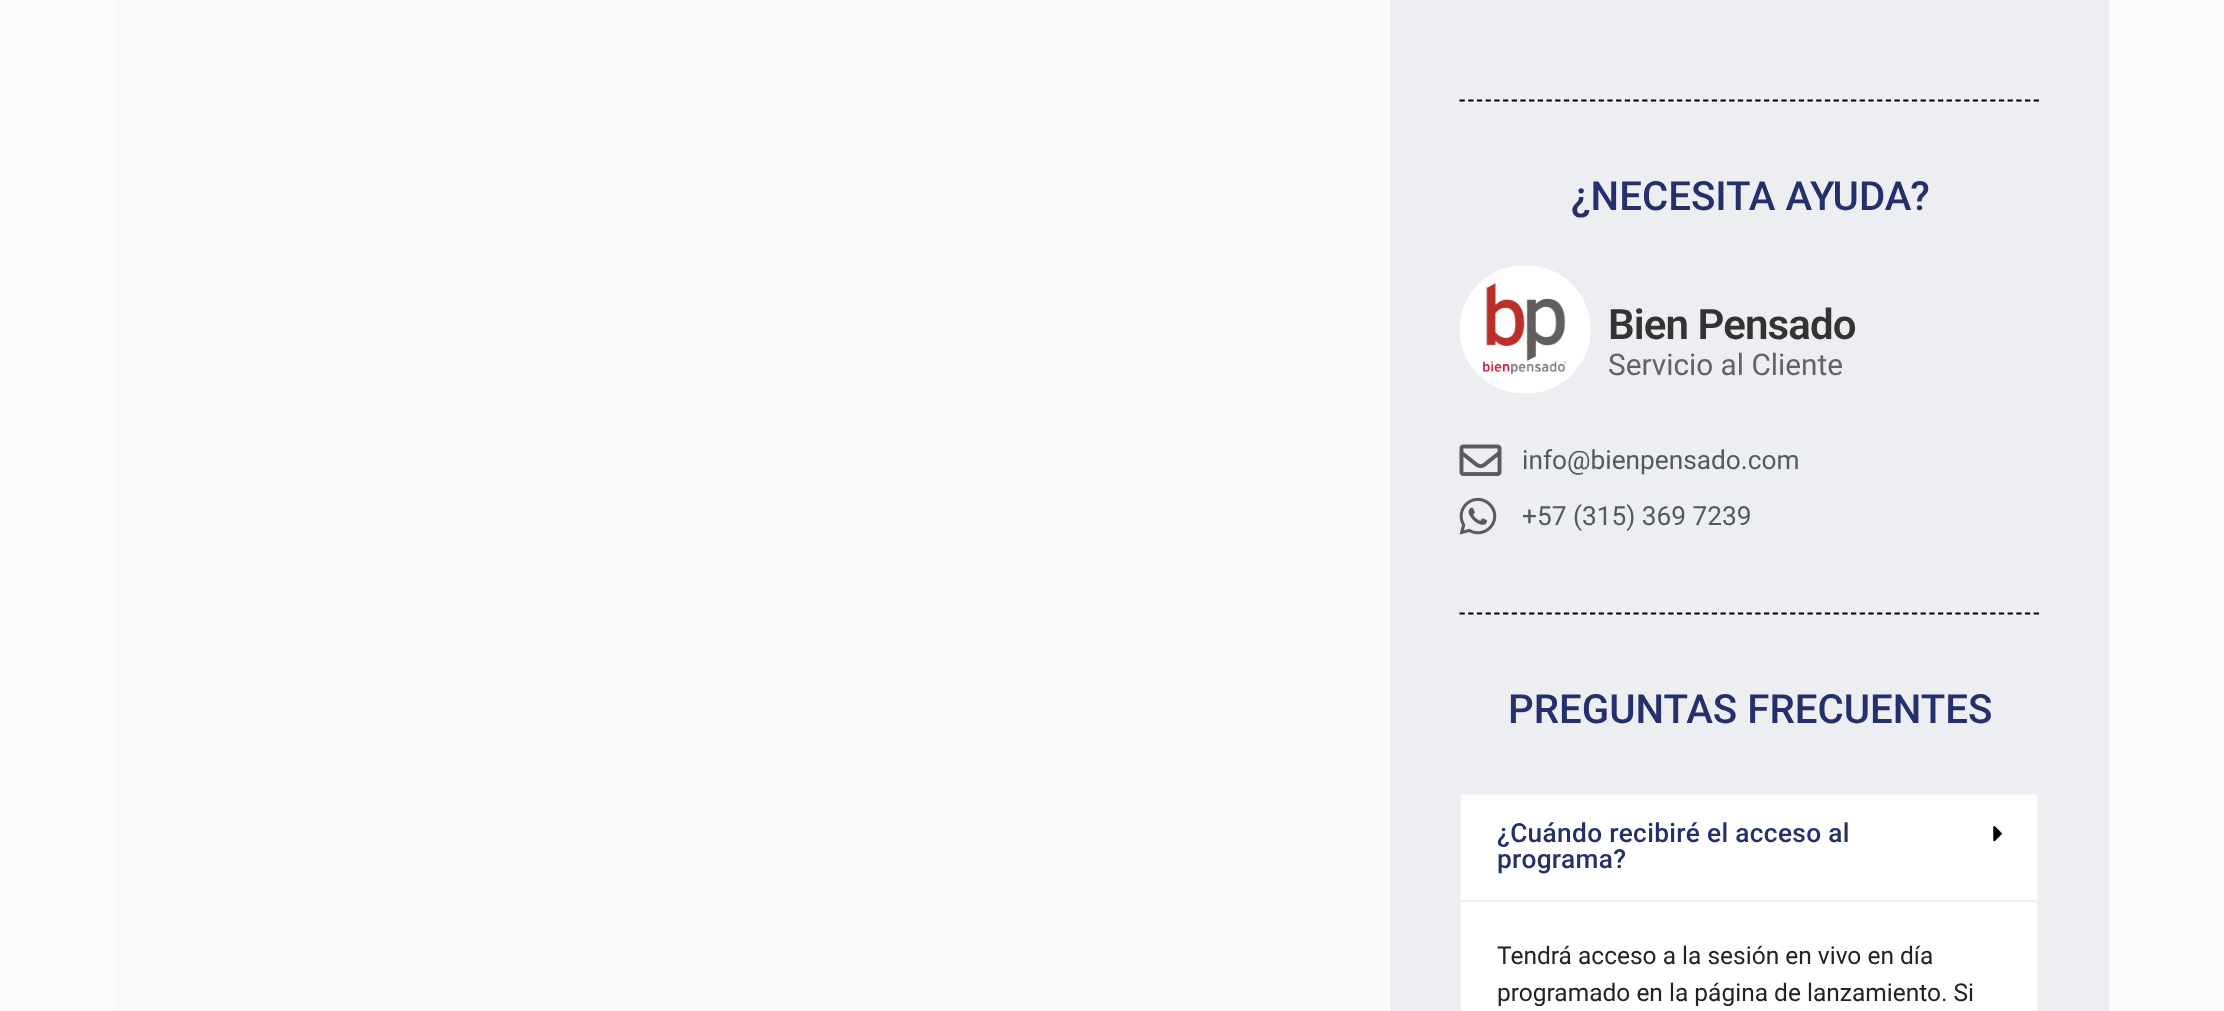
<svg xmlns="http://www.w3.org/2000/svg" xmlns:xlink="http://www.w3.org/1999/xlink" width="2224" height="1011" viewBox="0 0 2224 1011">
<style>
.cls-1{font:500 40.25px Roboto;fill:#242f6b}
.cls-2{font:600 42px Roboto;letter-spacing:-0.9px;fill:#333333}
.cls-3{font:29.75px Roboto;fill:#636363}
.cls-4{font:26.25px Roboto;fill:#54595f}
.cls-5{font:500 26.25px Roboto;letter-spacing:0.35px;fill:#242f6b}
.cls-6{font:24.5px Roboto;fill:#232326}
</style>
<rect width="100%" height="100%" fill="#fafbfd"/>
<rect fill="#f9f9f9" x="116" y="0" width="1274" height="1011"/>
<rect fill="#edeef2" x="1390" y="0" width="719" height="1011"/>
<path fill="none" stroke="#000000" stroke-width="1.8" stroke-dasharray="5.25 3.45" d="M1459.5 100.5H2039"/>
<image xlink:href="image0.png" x="1459" y="265" width="132" height="128"/>
<image xlink:href="image1.png" x="1459" y="444" width="43" height="32"/>
<image xlink:href="image2.png" x="1459" y="497" width="38" height="38"/>
<path fill="none" stroke="#000000" stroke-width="1.8" stroke-dasharray="5.25 3.45" d="M1459.5 613.5H2039"/>
<rect fill="none" stroke="#f2f2f2" stroke-width="2" x="1461" y="794" width="577" height="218"/>
<rect fill="#ffffff" x="1461" y="795" width="576" height="105"/>
<image xlink:href="image3.png" x="1993" y="826" width="9" height="16"/>
<rect fill="#ffffff" x="1461" y="902" width="576" height="109"/>
<rect fill="#f2f2f2" x="1461" y="900" width="576" height="2"/>
<text class="cls-1" x="1571" y="210">¿NECESITA AYUDA?</text>
<text class="cls-2" x="1608" y="339">Bien Pensado</text>
<text class="cls-3" x="1608" y="375">Servicio al Cliente</text>
<text class="cls-4" x="1522" y="469">info@bienpensado.com</text>
<text class="cls-4" x="1522" y="525">+57 (315) 369 7239</text>
<text class="cls-1" x="1508" y="723">PREGUNTAS FRECUENTES</text>
<text class="cls-5"><tspan x="1497" y="842">¿Cuándo recibiré el acceso al</tspan><tspan x="1497" y="868">programa?</tspan></text>
<text class="cls-6"><tspan x="1497" y="964">Tendrá acceso a la sesión en vivo en día</tspan><tspan x="1497" y="1001">programado en la página de lanzamiento. Si</tspan></text>
</svg>
